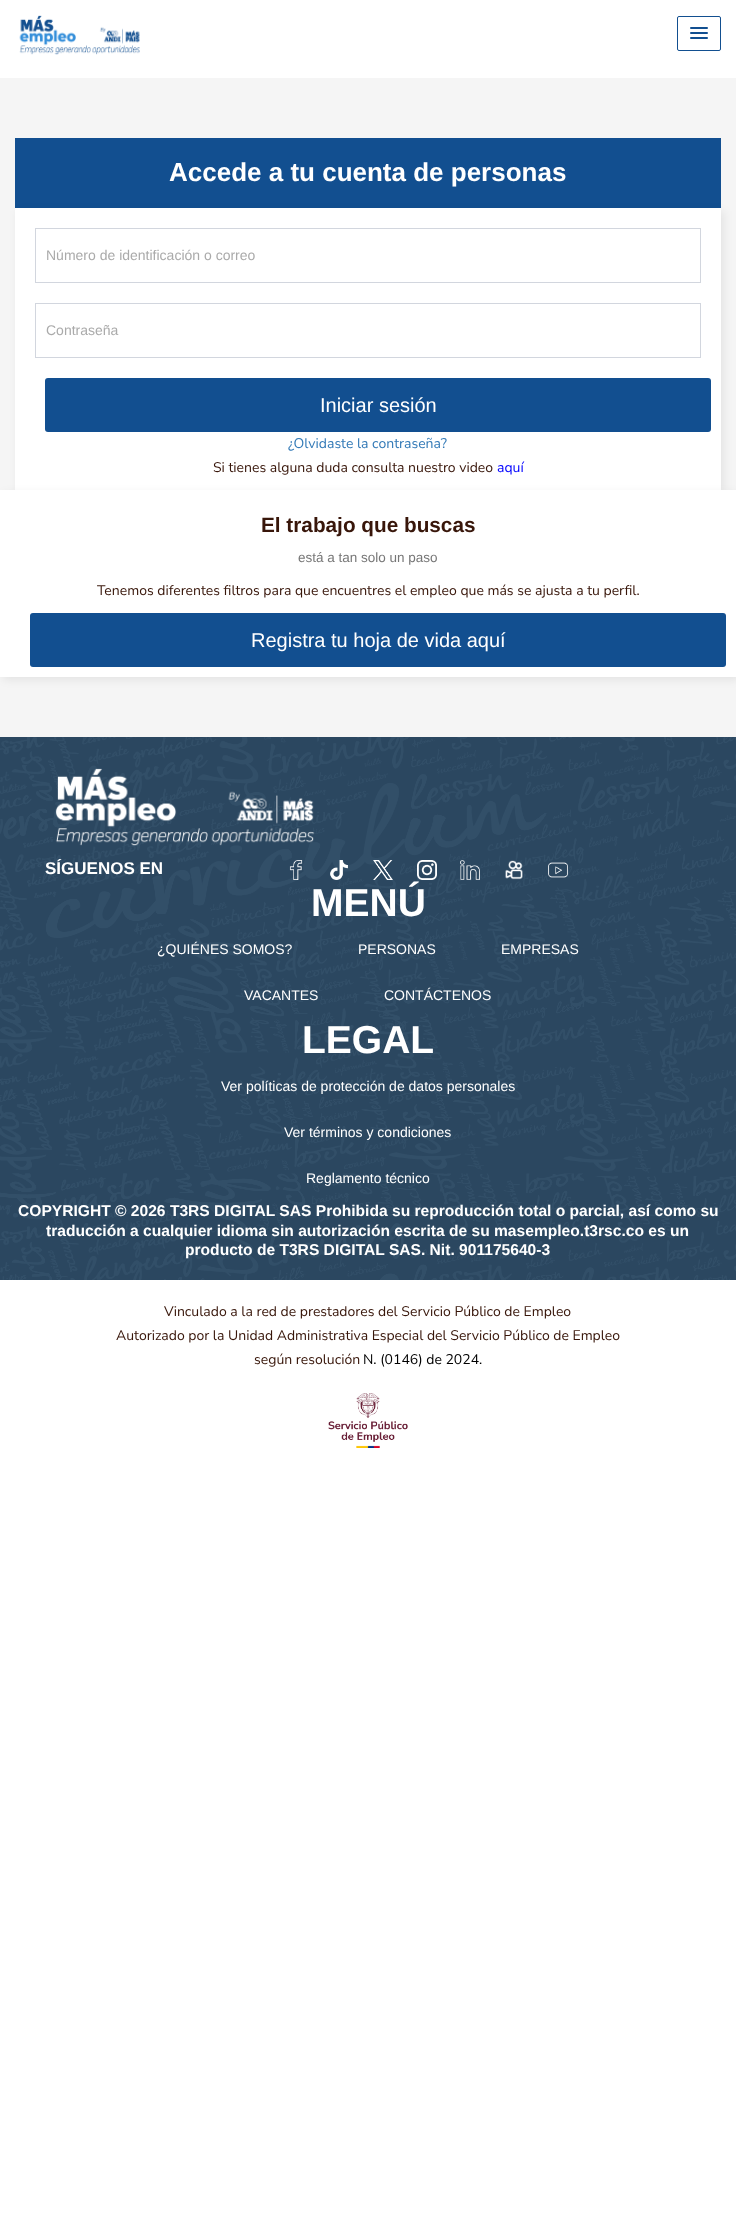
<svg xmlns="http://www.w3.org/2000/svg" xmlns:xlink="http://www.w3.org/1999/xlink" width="736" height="2219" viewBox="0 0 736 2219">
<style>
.cls-1{font:bold 26px Liberation Sans;fill:#ffffff}
.cls-2{font:14px Liberation Sans;fill:#aaaaaa}
.cls-3{font:20px Liberation Sans;fill:#ffffff}
.cls-4{font:14px Nunito Sans;fill:#337ab7}
.cls-5{font:14px Nunito Sans;fill:#38160a}
.cls-6{font:14px Nunito Sans;fill:#0000ff}
.cls-7{font:bold 20.75px Liberation Sans;fill:#38160a}
.cls-8{font:13.5px Liberation Sans;fill:#777777}
.cls-9{font:bold 17px Liberation Sans;fill:#ffffff}
.cls-10{font:bold 39px Liberation Sans;fill:#ffffff}
.cls-11{font:14px Liberation Sans;fill:#ffffff}
.cls-12{font:bold 15.6px Liberation Sans;fill:#ffffff}
.cls-13{font:14px Nunito Sans;fill:#000000}
</style>
<rect width="100%" height="100%" fill="#ffffff"/>
<image xlink:href="image0.png" x="19" y="15" width="121" height="40"/>
<rect fill="none" stroke="#124f90" x="677.5" y="16.5" width="43" height="34" rx="1.5"/>
<rect fill="#124f90" x="690" y="27" width="18" height="2" rx="1"/>
<rect fill="#124f90" x="690" y="32" width="18" height="2" rx="1"/>
<rect fill="#124f90" x="690" y="37" width="18" height="2" rx="1"/>
<rect fill="#f5f5f5" x="0" y="78" width="736" height="659"/>
<rect fill="#124f90" x="15" y="138" width="706" height="70"/>
<rect fill="#000000" fill-opacity="0.07" filter="blur(4.5px)" x="18" y="211" width="706" height="282"/>
<rect fill="#ffffff" x="15" y="208" width="706" height="282"/>
<rect fill="none" stroke="#d2d6de" x="35.5" y="228.5" width="665" height="54"/>
<rect fill="none" stroke="#d2d6de" x="35.5" y="303.5" width="665" height="54"/>
<rect fill="#124f90" x="45" y="378" width="666" height="54" rx="3"/>
<rect fill="#000000" fill-opacity="0.07" filter="blur(4.5px)" x="3" y="493" width="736" height="187"/>
<rect fill="#ffffff" x="0" y="490" width="736" height="187"/>
<rect fill="#124f90" x="30" y="613" width="696" height="54" rx="3"/>
<image xlink:href="image1.png" x="0" y="737" width="736" height="543"/>
<image xlink:href="image2.png" x="55" y="768" width="260" height="78"/>
<image xlink:href="image3.png" x="289" y="860" width="14" height="20"/>
<image xlink:href="image4.png" x="330" y="860" width="18" height="20"/>
<image xlink:href="image5.png" x="373" y="860" width="20" height="20"/>
<image xlink:href="image6.png" x="417" y="860" width="20" height="20"/>
<image xlink:href="image7.png" x="460" y="860" width="20" height="20"/>
<image xlink:href="image8.png" x="505" y="860" width="18" height="20"/>
<image xlink:href="image9.png" x="548" y="862" width="20" height="16"/>
<image xlink:href="image10.png" x="328" y="1393" width="80" height="55"/>
<text class="cls-1" x="169" y="181">Accede a tu cuenta de personas</text>
<text class="cls-2" x="46" y="260">Número de identificación o correo</text>
<text class="cls-2" x="46" y="335">Contraseña</text>
<text class="cls-3" x="320" y="412">Iniciar sesión</text>
<text class="cls-4" x="288" y="448">¿Olvidaste la contraseña?</text>
<text class="cls-5" x="213" y="472">Si tienes alguna duda consulta nuestro video</text>
<text class="cls-6" x="497" y="472">aquí</text>
<text class="cls-7" x="261" y="532">El trabajo que buscas</text>
<text class="cls-8" x="298" y="562">está a tan solo un paso</text>
<text class="cls-5" x="97" y="595">Tenemos diferentes filtros para que encuentres el empleo que más se ajusta a tu perfil.</text>
<text class="cls-3" x="251" y="647">Registra tu hoja de vida aquí</text>
<text class="cls-9" x="45" y="874">SÍGUENOS EN</text>
<text class="cls-10" x="311" y="916">MENÚ</text>
<text class="cls-11" x="157" y="954">¿QUIÉNES SOMOS?</text>
<text class="cls-11" x="358" y="954">PERSONAS</text>
<text class="cls-11" x="501" y="954">EMPRESAS</text>
<text class="cls-11" x="244" y="1000">VACANTES</text>
<text class="cls-11" x="384" y="1000">CONTÁCTENOS</text>
<text class="cls-10" x="302" y="1053">LEGAL</text>
<text class="cls-11" x="221" y="1091">Ver políticas de protección de datos personales</text>
<text class="cls-11" x="284" y="1137">Ver términos y condiciones</text>
<text class="cls-11" x="306" y="1183">Reglamento técnico</text>
<text class="cls-12" x="18" y="1216">COPYRIGHT © 2026 T3RS DIGITAL SAS Prohibida su reproducción total o parcial, así como su</text>
<text class="cls-12" x="46" y="1236">traducción a cualquier idioma sin autorización escrita de su masempleo.t3rsc.co es un</text>
<text class="cls-12" x="185" y="1255">producto de T3RS DIGITAL SAS. Nit. 901175640-3</text>
<text class="cls-5" x="164" y="1316">Vinculado a la red de prestadores del Servicio Público de Empleo</text>
<text class="cls-5" x="116" y="1340">Autorizado por la Unidad Administrativa Especial del Servicio Público de Empleo</text>
<text class="cls-5" x="254" y="1364">según resolución</text>
<text class="cls-13" x="363" y="1364">N. (0146) de 2024.</text>
</svg>
